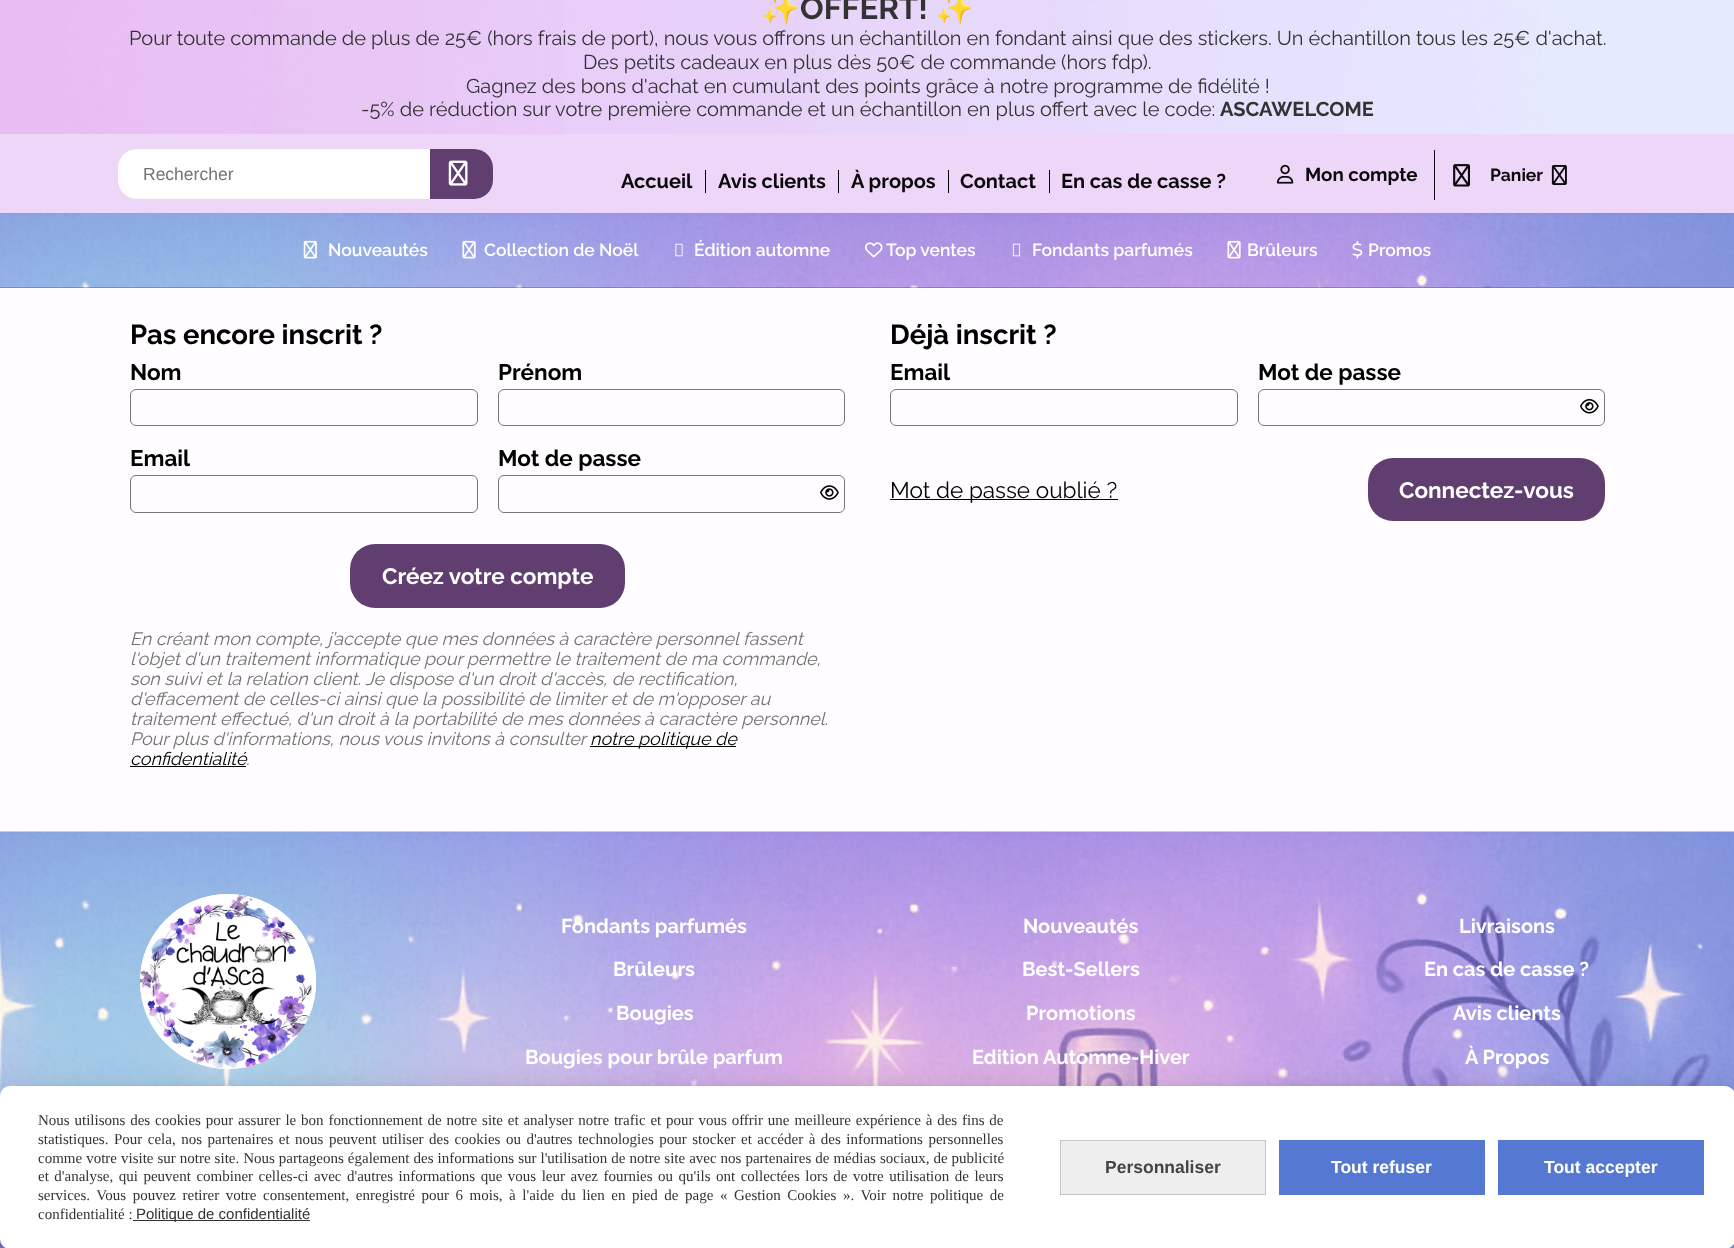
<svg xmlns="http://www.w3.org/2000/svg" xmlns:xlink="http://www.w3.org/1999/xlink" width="1734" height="1248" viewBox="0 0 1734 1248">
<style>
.cls-1{font:bold 31.25px Noto Color Emoji;fill:#333333}
.cls-2{font:bold 31.25px Raleway;fill:#333333}
.cls-3{font:20px Raleway;fill:#333333}
.cls-4{font:bold 20px Raleway;fill:#333333}
.cls-5{font:17.5px Liberation Sans;fill:#737373}
.cls-6{font:bold 18.75px Raleway;fill:#0a080a}
.cls-7{font:bold 17.5px Raleway;fill:#0a080a}
.cls-8{font:bold 20px Raleway;fill:#0a080a}
.cls-9{font:600 17.5px Raleway;fill:#ffffff}
.cls-10{font:bold 27.5px Raleway;fill:#000000}
.cls-11{font:bold 22.5px Raleway;fill:#000000}
.cls-12{font:bold 22.5px Raleway;fill:#ffffff}
.cls-13{font:italic 17.9px Raleway;fill:#737373}
.cls-14{font:italic 17.9px Raleway;fill:#000000}
.cls-15{font:22.5px Raleway;fill:#000000}
.cls-16{font:bold 20px Raleway;fill:#ffffff}
.cls-17{font:15px Liberation Serif;fill:#333333}
.cls-18{font:15px Liberation Sans;fill:#333333}
.cls-19{font:bold 17.5px Liberation Sans;fill:#444444}
.cls-20{font:bold 17.5px Liberation Sans;fill:#ffffff}
</style>
<rect width="100%" height="100%" fill="#fffdff"/>
<image xlink:href="image0.png" x="0" y="0" width="1734" height="134"/>
<rect fill="#eed6f9" x="0" y="134" width="1734" height="79"/>
<path fill="#ffffff" d="M137 149H430V199H137C126.5 199 118 190.5 118 180V168C118 157.5 126.5 149 137 149Z"/>
<path fill="#603e6f" d="M430 149H474C484.5 149 493 157.5 493 168V180C493 190.5 484.5 199 474 199H430Z"/>
<image xlink:href="image1.png" x="448" y="160" width="20" height="26"/>
<rect fill="#0a080a" x="1434" y="150" width="1" height="50"/>
<image xlink:href="image2.png" x="1276" y="164" width="18" height="20"/>
<image xlink:href="image3.png" x="1453" y="164" width="17" height="23"/>
<image xlink:href="image4.png" x="1551" y="165" width="16" height="20"/>
<rect fill="#000000" x="705" y="170" width="1" height="23"/>
<rect fill="#000000" x="838" y="170" width="1" height="23"/>
<rect fill="#000000" x="948" y="170" width="1" height="23"/>
<rect fill="#000000" x="1049" y="170" width="1" height="23"/>
<rect fill="#603e6f" x="0" y="287" width="1734" height="1"/>
<image xlink:href="image5.png" x="0" y="213" width="1734" height="75"/>
<image xlink:href="image6.png" x="303" y="240" width="14" height="19"/>
<image xlink:href="image7.png" x="462" y="240" width="14" height="19"/>
<image xlink:href="image8.png" x="675" y="243" width="8" height="14"/>
<image xlink:href="image9.png" x="865" y="242" width="18" height="16"/>
<image xlink:href="image10.png" x="1012" y="243" width="9" height="14"/>
<image xlink:href="image11.png" x="1227" y="240" width="14" height="19"/>
<image xlink:href="image12.png" x="1352" y="241" width="11" height="18"/>
<rect fill="none" stroke="#767676" x="130.5" y="389.5" width="347" height="36" rx="5.5"/>
<rect fill="none" stroke="#767676" x="498.5" y="389.5" width="346" height="36" rx="5.5"/>
<rect fill="none" stroke="#767676" x="130.5" y="475.5" width="347" height="37" rx="5.5"/>
<rect fill="none" stroke="#767676" x="498.5" y="475.5" width="346" height="37" rx="5.5"/>
<image xlink:href="image13.png" x="820" y="485" width="19" height="15"/>
<rect fill="#603e6f" x="350" y="544" width="275" height="64" rx="25"/>
<rect fill="#000000" x="590" y="746" width="146" height="1"/>
<rect fill="#000000" x="130" y="766" width="116" height="1"/>
<rect fill="none" stroke="#767676" x="890.5" y="389.5" width="347" height="36" rx="5.5"/>
<rect fill="none" stroke="#767676" x="1258.5" y="389.5" width="346" height="36" rx="5.5"/>
<image xlink:href="image14.png" x="1580" y="399" width="19" height="15"/>
<rect fill="#000000" x="890" y="499" width="228" height="1"/>
<rect fill="#603e6f" x="1368" y="458" width="237" height="63" rx="25"/>
<image xlink:href="image15.png" x="0" y="831" width="1734" height="417"/>
<rect fill="#ffffff" x="140" y="894" width="176" height="175" rx="87.5"/>
<image xlink:href="image16.png" x="140" y="894" width="177" height="175"/>
<rect fill="#000000" fill-opacity="0.05" filter="blur(4px)" x="0" y="1089" width="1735" height="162" rx="10"/>
<rect fill="#000000" fill-opacity="0.15" filter="blur(15px)" x="0" y="1091" width="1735" height="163" rx="10"/>
<rect fill="#ffffff" x="0" y="1086" width="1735" height="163" rx="10"/>
<rect fill="#333333" x="133" y="1220" width="177" height="1"/>
<rect fill="#eeeeee" stroke="#c5c5c5" x="1060.5" y="1140.5" width="205" height="54"/>
<rect fill="#5579d2" x="1279" y="1140" width="206" height="55"/>
<rect fill="#5579d2" x="1498" y="1140" width="206" height="55"/>
<text class="cls-1" x="761" y="19">✨</text>
<text class="cls-2" x="800" y="19">OFFERT!</text>
<text class="cls-1" x="935" y="19">✨</text>
<text class="cls-3" x="129" y="45">Pour toute commande de plus de 25€ (hors frais de port), nous vous offrons un échantillon en fondant ainsi que des stickers. Un échantillon tous les 25€ d'achat.</text>
<text class="cls-3" x="583" y="69">Des petits cadeaux en plus dès 50€ de commande (hors fdp).</text>
<text class="cls-3" x="466" y="93">Gagnez des bons d'achat en cumulant des points grâce à notre programme de fidélité !</text>
<text class="cls-3" x="361" y="116">-5% de réduction sur votre première commande et un échantillon en plus offert avec le code:</text>
<text class="cls-4" x="1220" y="116">ASCAWELCOME</text>
<text class="cls-5" x="143" y="180">Rechercher</text>
<text class="cls-6" x="1305" y="181">Mon compte</text>
<text class="cls-7" x="1490" y="181">Panier</text>
<text class="cls-8" x="621" y="188">Accueil</text>
<text class="cls-8" x="718" y="188">Avis clients</text>
<text class="cls-8" x="851" y="188">À propos</text>
<text class="cls-8" x="960" y="188">Contact</text>
<text class="cls-8" x="1061" y="188">En cas de casse ?</text>
<text class="cls-9" x="328" y="256">Nouveautés</text>
<text class="cls-9" x="484" y="256">Collection de Noël</text>
<text class="cls-9" x="694" y="256">Édition automne</text>
<text class="cls-9" x="886" y="256">Top ventes</text>
<text class="cls-9" x="1032" y="256">Fondants parfumés</text>
<text class="cls-9" x="1247" y="256">Brûleurs</text>
<text class="cls-9" x="1368" y="256">Promos</text>
<text class="cls-10" x="130" y="344">Pas encore inscrit ?</text>
<text class="cls-11" x="130" y="380">Nom</text>
<text class="cls-11" x="498" y="380">Prénom</text>
<text class="cls-11" x="130" y="466">Email</text>
<text class="cls-11" x="498" y="466">Mot de passe</text>
<text class="cls-12" x="382" y="584">Créez votre compte</text>
<text class="cls-13"><tspan x="130" y="645">En créant mon compte, j’accepte que mes données à caractère personnel fassent</tspan><tspan x="130" y="665">l'objet d'un traitement informatique pour permettre le traitement de ma commande,</tspan><tspan x="130" y="685">son suivi et la relation client. Je dispose d'un droit d'accès, de rectification,</tspan><tspan x="130" y="705">d'effacement de celles-ci ainsi que la possibilité de limiter et de m'opposer au</tspan><tspan x="130" y="725">traitement effectué, d'un droit à la portabilité de mes données à caractère personnel.</tspan><tspan x="130" y="745">Pour plus d'informations, nous vous invitons à consulter</tspan></text>
<text class="cls-14" x="590" y="745">notre politique de</text>
<text class="cls-14" x="130" y="765">confidentialité</text>
<text class="cls-13" x="246" y="765">.</text>
<text class="cls-10" x="890" y="344">Déjà inscrit ?</text>
<text class="cls-11" x="890" y="380">Email</text>
<text class="cls-11" x="1258" y="380">Mot de passe</text>
<text class="cls-15" x="890" y="498">Mot de passe oublié ?</text>
<text class="cls-12" x="1399" y="498">Connectez-vous</text>
<text class="cls-16" x="561" y="933">Fondants parfumés</text>
<text class="cls-16" x="613" y="976">Brûleurs</text>
<text class="cls-16" x="616" y="1020">Bougies</text>
<text class="cls-16" x="525" y="1064">Bougies pour brûle parfum</text>
<text class="cls-16" x="1023" y="933">Nouveautés</text>
<text class="cls-16" x="1022" y="976">Best-Sellers</text>
<text class="cls-16" x="1026" y="1020">Promotions</text>
<text class="cls-16" x="972" y="1064">Edition Automne-Hiver</text>
<text class="cls-16" x="1459" y="933">Livraisons</text>
<text class="cls-16" x="1424" y="976">En cas de casse ?</text>
<text class="cls-16" x="1453" y="1020">Avis clients</text>
<text class="cls-16" x="1465" y="1064">À Propos</text>
<text class="cls-17"><tspan x="38" y="1125" word-spacing="1.1">Nous utilisons des cookies pour assurer le bon fonctionnement de notre site et analyser notre trafic et pour vous offrir une meilleure expérience à des fins de</tspan><tspan x="38" y="1144" word-spacing="1.75">statistiques. Pour cela, nos partenaires et nous peuvent utiliser des cookies ou d'autres technologies pour stocker et accéder à des informations personnelles</tspan><tspan x="38" y="1163" word-spacing="0.25">comme votre visite sur notre site. Nous partageons également des informations sur l'utilisation de notre site avec nos partenaires de médias sociaux, de publicité</tspan><tspan x="38" y="1181" word-spacing="1.75">et d'analyse, qui peuvent combiner celles-ci avec d'autres informations que vous leur avez fournies ou qu'ils ont collectées lors de votre utilisation de leurs</tspan><tspan x="38" y="1200" word-spacing="2.8">services. Vous pouvez retirer votre consentement, enregistré pour 6 mois, à l'aide du lien en pied de page « Gestion Cookies ». Voir notre politique de</tspan><tspan x="38" y="1219">confidentialité :</tspan></text>
<text class="cls-18" x="136" y="1219">Politique de confidentialité</text>
<text class="cls-19" x="1105" y="1173">Personnaliser</text>
<text class="cls-20" x="1331" y="1173">Tout refuser</text>
<text class="cls-20" x="1544" y="1173">Tout accepter</text>
</svg>
